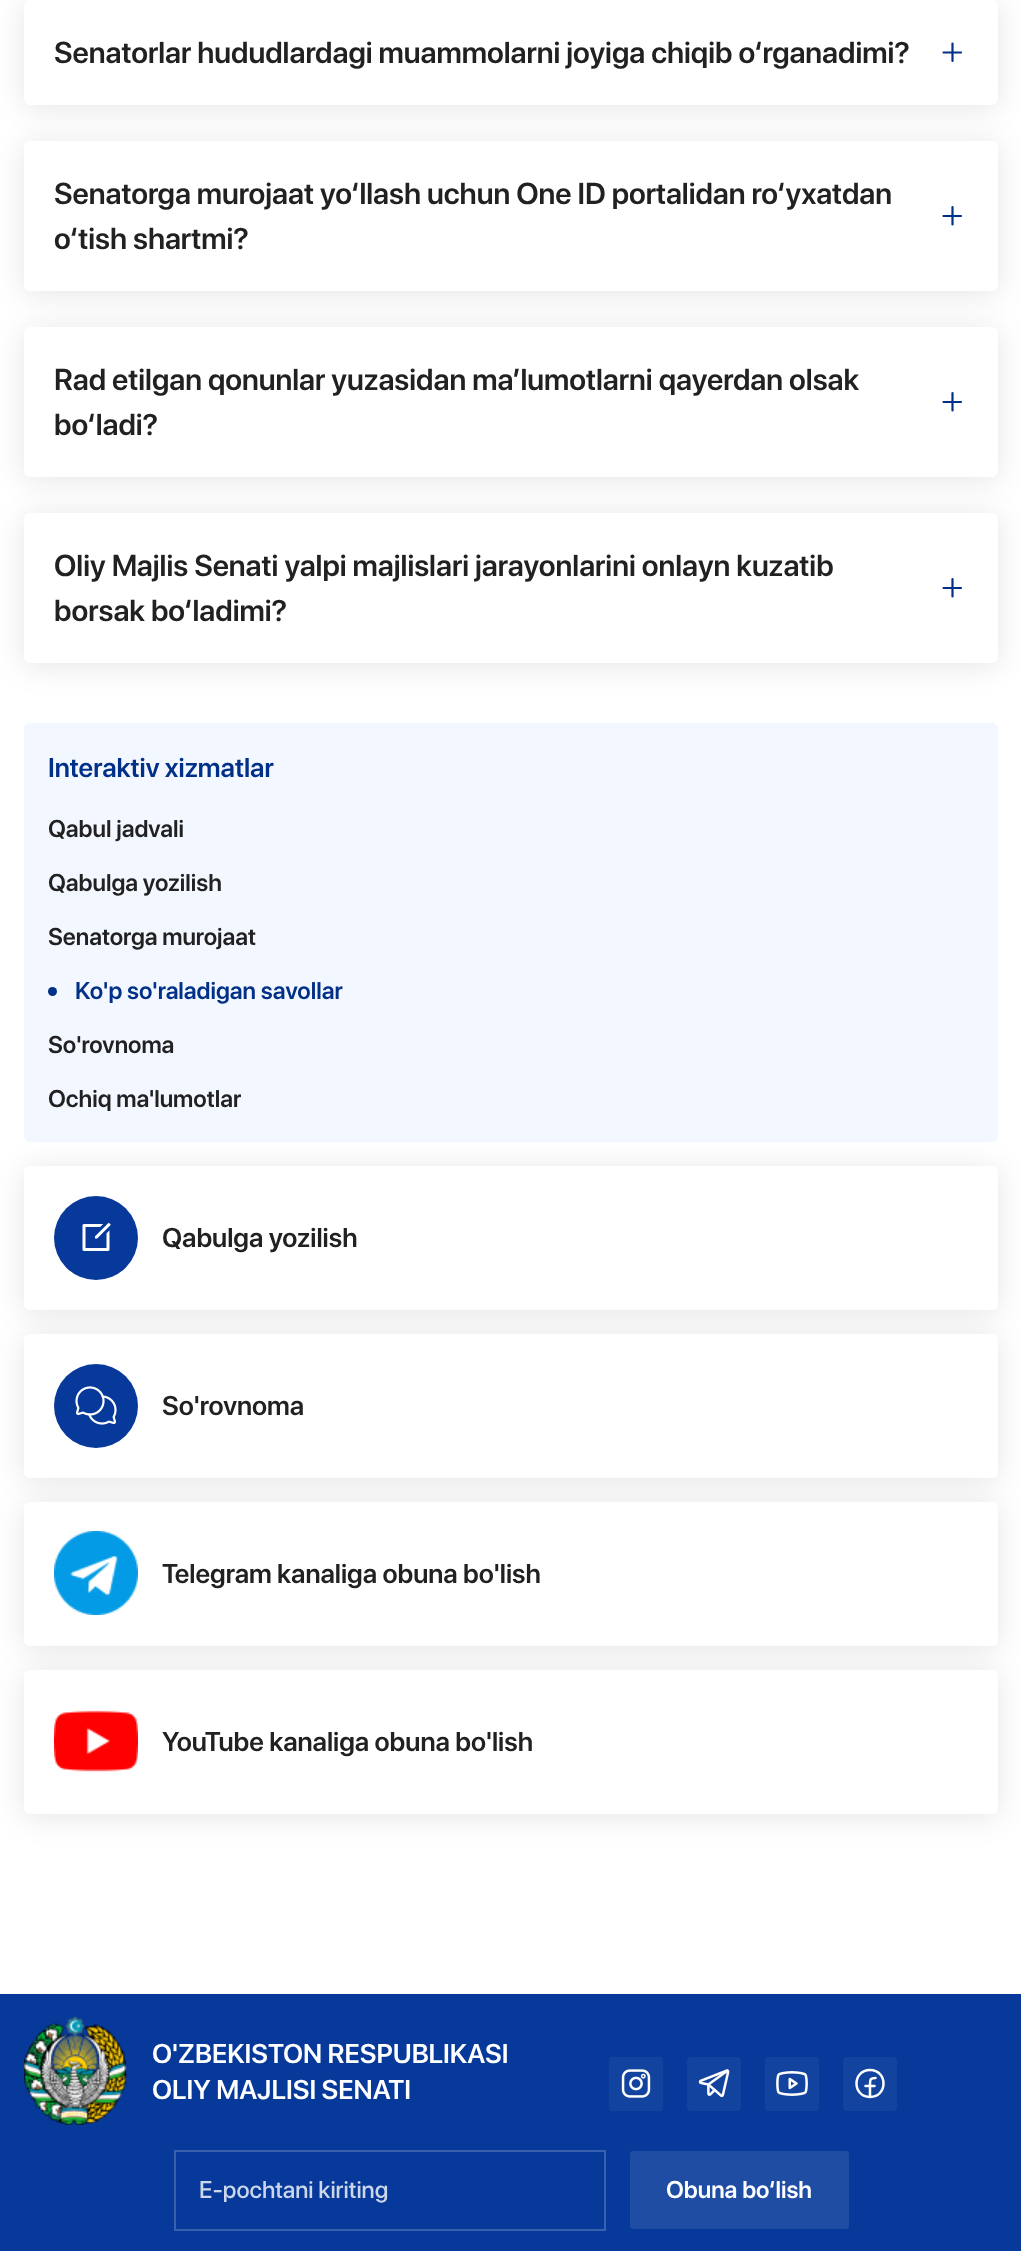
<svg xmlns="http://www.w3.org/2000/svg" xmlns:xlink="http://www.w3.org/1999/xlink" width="1021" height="2251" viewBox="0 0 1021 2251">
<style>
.cls-1{font:600 30px SF Pro Display;fill:#212121}
.cls-2{font:600 27px SF Pro Display;fill:#003087}
.cls-3{font:600 24px SF Pro Display;fill:#212121}
.cls-4{font:600 24px SF Pro Display;fill:#003087}
.cls-5{font:600 27px SF Pro Display;fill:#212121}
.cls-6{font:600 27px SF Pro Display;fill:#ffffff}
.cls-7{font:500 24px SF Pro Display;fill:#cdd7eb}
.cls-8{font:600 24px SF Pro Display;fill:#ffffff}
</style>
<rect width="100%" height="100%" fill="#ffffff"/>
<rect fill="#000000" fill-opacity="0.1" filter="blur(15px)" x="24" y="3" width="974" height="105" rx="6"/>
<rect fill="#ffffff" x="24" y="0" width="974" height="105" rx="6"/>
<path fill="none" stroke="#003087" stroke-width="2.2" stroke-linecap="round" stroke-linejoin="round" d="M952.5 43.5V61M943.5 52.5H961"/>
<rect fill="#000000" fill-opacity="0.1" filter="blur(15px)" x="24" y="144" width="974" height="150" rx="6"/>
<rect fill="#ffffff" x="24" y="141" width="974" height="150" rx="6"/>
<path fill="none" stroke="#003087" stroke-width="2.2" stroke-linecap="round" stroke-linejoin="round" d="M952.5 207V224.5M943.5 216H961"/>
<rect fill="#000000" fill-opacity="0.1" filter="blur(15px)" x="24" y="330" width="974" height="150" rx="6"/>
<rect fill="#ffffff" x="24" y="327" width="974" height="150" rx="6"/>
<path fill="none" stroke="#003087" stroke-width="2.2" stroke-linecap="round" stroke-linejoin="round" d="M952.5 393V410.5M943.5 402H961"/>
<rect fill="#000000" fill-opacity="0.1" filter="blur(15px)" x="24" y="516" width="974" height="150" rx="6"/>
<rect fill="#ffffff" x="24" y="513" width="974" height="150" rx="6"/>
<path fill="none" stroke="#003087" stroke-width="2.2" stroke-linecap="round" stroke-linejoin="round" d="M952.5 579V596.5M943.5 588H961"/>
<rect fill="#f3f7ff" x="24" y="723" width="974" height="419" rx="6"/>
<circle fill="#003087" cx="52.5" cy="991.5" r="4.5"/>
<rect fill="#000000" fill-opacity="0.1" filter="blur(15px)" x="24" y="1169" width="974" height="144" rx="6"/>
<rect fill="#ffffff" x="24" y="1166" width="974" height="144" rx="6"/>
<circle fill="#063999" cx="96" cy="1238" r="42"/>
<image xlink:href="image0.png" x="82" y="1222" width="29" height="29"/>
<rect fill="#000000" fill-opacity="0.1" filter="blur(15px)" x="24" y="1337" width="974" height="144" rx="6"/>
<rect fill="#ffffff" x="24" y="1334" width="974" height="144" rx="6"/>
<circle fill="#063999" cx="96" cy="1406" r="42"/>
<image xlink:href="image1.png" x="75" y="1386" width="42" height="39"/>
<rect fill="#000000" fill-opacity="0.1" filter="blur(15px)" x="24" y="1505" width="974" height="144" rx="6"/>
<rect fill="#ffffff" x="24" y="1502" width="974" height="144" rx="6"/>
<image xlink:href="image2.png" x="54" y="1531" width="84" height="84"/>
<rect fill="#000000" fill-opacity="0.1" filter="blur(15px)" x="24" y="1673" width="974" height="144" rx="6"/>
<rect fill="#ffffff" x="24" y="1670" width="974" height="144" rx="6"/>
<image xlink:href="image3.png" x="54" y="1710" width="84" height="62"/>
<rect fill="#063999" x="0" y="1994" width="1021" height="257"/>
<image xlink:href="image4.png" x="24" y="2017" width="104" height="108"/>
<rect fill="#12439e" x="609" y="2057" width="54" height="54" rx="3"/>
<image xlink:href="image5.png" x="621" y="2069" width="30" height="29"/>
<rect fill="#12439e" x="687" y="2057" width="54" height="54" rx="3"/>
<image xlink:href="image6.png" x="698" y="2069" width="32" height="29"/>
<rect fill="#12439e" x="765" y="2057" width="54" height="54" rx="3"/>
<image xlink:href="image7.png" x="776" y="2071" width="32" height="25"/>
<rect fill="#12439e" x="843" y="2057" width="54" height="54" rx="3"/>
<path fill="none" stroke="#ffffff" stroke-width="2.5" stroke-linecap="round" stroke-linejoin="round" d="M870 2097C888 2097 888 2070 870 2070C852 2070 852 2097 870 2097ZM875.5 2078C870.5 2078 870 2079 870 2084V2097M865.5 2086H874.5"/>
<rect fill="none" stroke="#3861ad" stroke-width="2" x="175" y="2151" width="430" height="79"/>
<rect fill="#1f4da3" x="630" y="2151" width="219" height="78" rx="3"/>
<text class="cls-1" x="54" y="63">Senatorlar hududlardagi muammolarni joyiga chiqib o‘rganadimi?</text>
<text class="cls-1"><tspan x="54" y="204">Senatorga murojaat yo‘llash uchun One ID portalidan ro‘yxatdan</tspan><tspan x="54" y="249">o‘tish shartmi?</tspan></text>
<text class="cls-1"><tspan x="54" y="390">Rad etilgan qonunlar yuzasidan maʼlumotlarni qayerdan olsak</tspan><tspan x="54" y="435">bo‘ladi?</tspan></text>
<text class="cls-1"><tspan x="54" y="576">Oliy Majlis Senati yalpi majlislari jarayonlarini onlayn kuzatib</tspan><tspan x="54" y="621">borsak bo‘ladimi?</tspan></text>
<text class="cls-2" x="48" y="777">Interaktiv xizmatlar</text>
<text class="cls-3" x="48" y="837">Qabul jadvali</text>
<text class="cls-3" x="48" y="891">Qabulga yozilish</text>
<text class="cls-3" x="48" y="945">Senatorga murojaat</text>
<text class="cls-4" x="75" y="999">Ko'p so'raladigan savollar</text>
<text class="cls-3" x="48" y="1053">So'rovnoma</text>
<text class="cls-3" x="48" y="1107">Ochiq ma'lumotlar</text>
<text class="cls-5" x="162" y="1247">Qabulga yozilish</text>
<text class="cls-5" x="162" y="1415">So'rovnoma</text>
<text class="cls-5" x="162" y="1583">Telegram kanaliga obuna bo'lish</text>
<text class="cls-5" x="162" y="1751">YouTube kanaliga obuna bo'lish</text>
<text class="cls-6"><tspan x="152" y="2063">O'ZBEKISTON RESPUBLIKASI</tspan><tspan x="152" y="2099">OLIY MAJLISI SENATI</tspan></text>
<text class="cls-7" x="199" y="2198">E-pochtani kiriting</text>
<text class="cls-8" x="666" y="2198">Obuna bo‘lish</text>
</svg>
